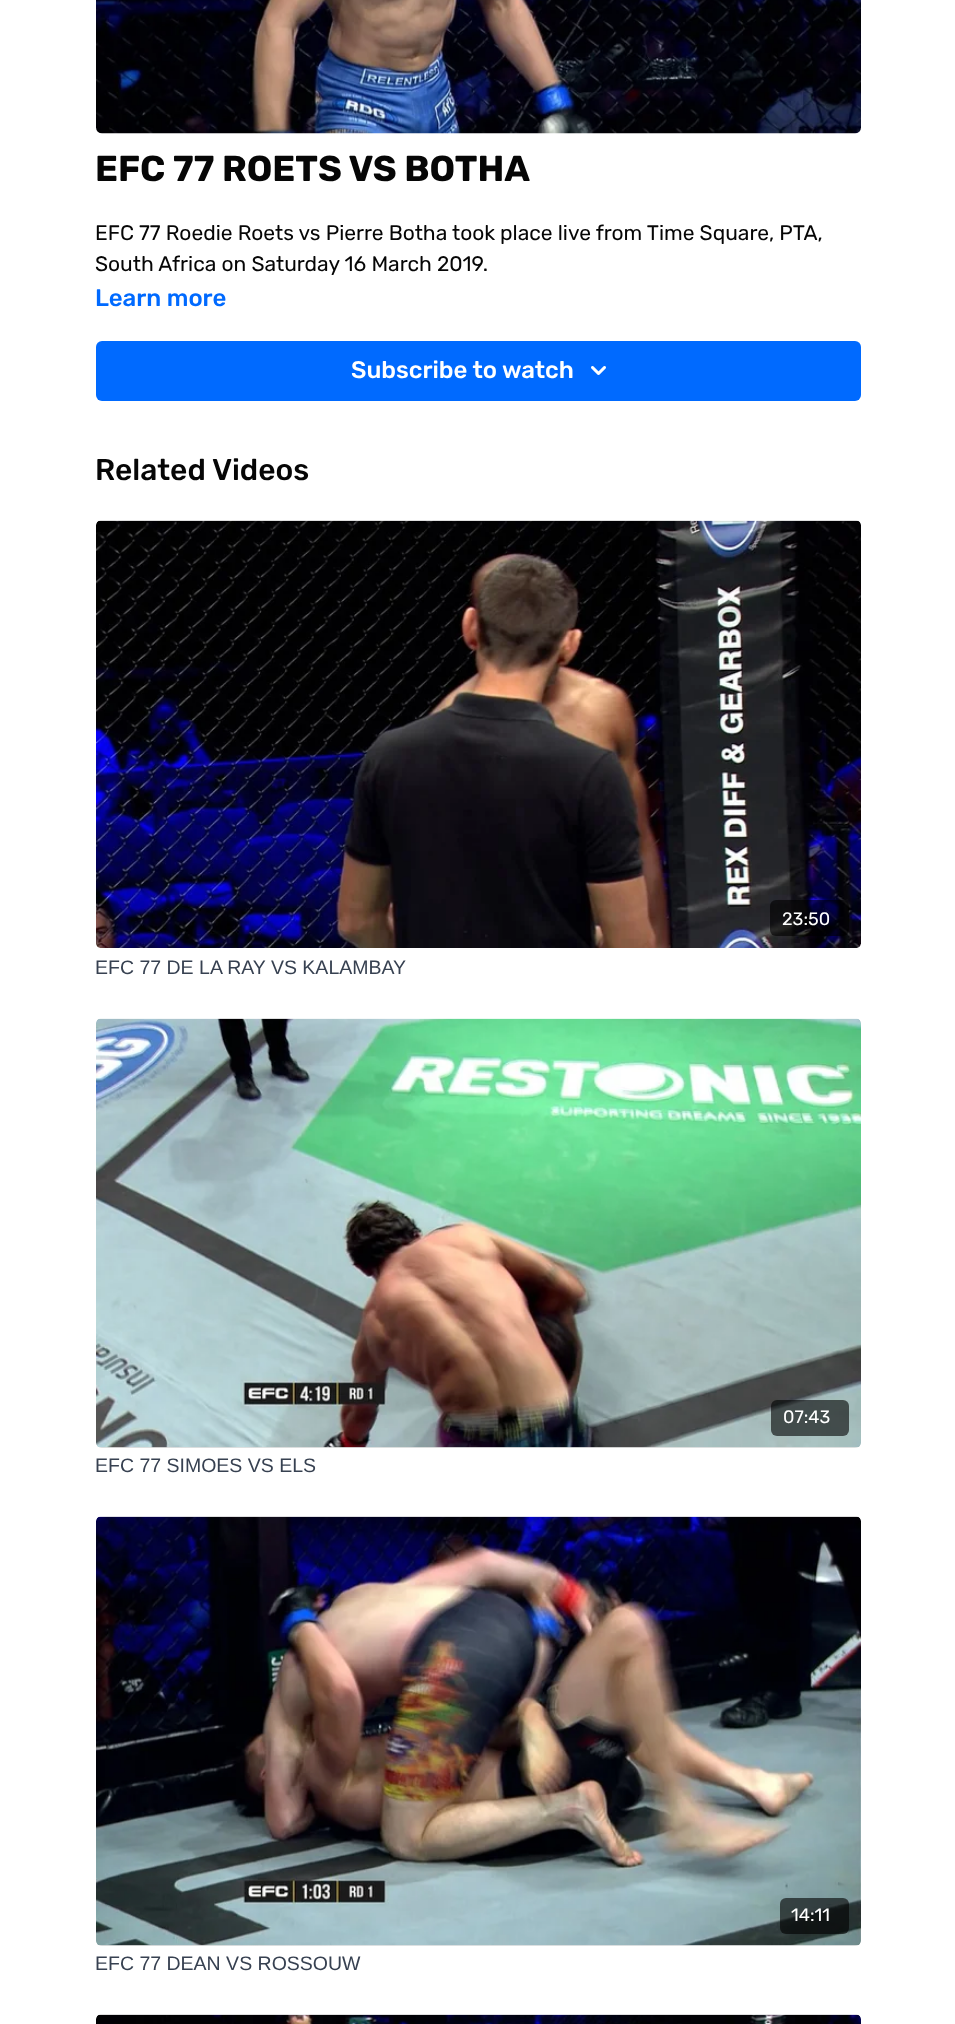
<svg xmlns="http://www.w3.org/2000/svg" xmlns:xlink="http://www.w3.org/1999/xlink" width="955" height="2024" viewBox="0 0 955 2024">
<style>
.cls-1{font:bold 36px Rubik;fill:#060606}
.cls-2{font:21px Rubik;fill:#060606}
.cls-3{font:500 24px Rubik;fill:#006aff}
.cls-4{font:500 24px Rubik;fill:#ffffff}
.cls-5{font:500 30px Rubik;fill:#060606}
.cls-6{font:18px Rubik;fill:#ffffff}
.cls-7{font:19.5px Liberation Sans;fill:#374151}
</style>
<defs>
<linearGradient id="g1" gradientUnits="userSpaceOnUse" x1="96" y1="1233" x2="861" y2="1233"><stop offset="0.08" stop-color="#dfdfdf"/><stop offset="0.18" stop-color="#e1e1e1"/><stop offset="0.33" stop-color="#e4e4e4"/></linearGradient>
<linearGradient id="g2" gradientUnits="userSpaceOnUse" x1="96" y1="1731" x2="861" y2="1731"><stop offset="0.08" stop-color="#dfdfdf"/><stop offset="0.18" stop-color="#e1e1e1"/><stop offset="0.33" stop-color="#e4e4e4"/></linearGradient>
</defs>
<rect width="100%" height="100%" fill="#ffffff"/>
<image xlink:href="image0.png" x="96" y="0" width="765" height="134"/>
<rect fill="#006aff" x="96" y="341" width="765" height="60" rx="6"/>
<image xlink:href="image1.png" x="591" y="366" width="15" height="9"/>
<image xlink:href="image2.png" x="96" y="520" width="765" height="428"/>
<rect fill="#000000" fill-opacity="0.6" x="770" y="900" width="79" height="36" rx="6"/>
<rect fill="url(#g1)" x="96" y="1019" width="765" height="429" rx="6"/>
<image xlink:href="image3.png" x="96" y="1018" width="765" height="430"/>
<rect fill="#000000" fill-opacity="0.6" x="771" y="1400" width="78" height="36" rx="6"/>
<rect fill="url(#g2)" x="96" y="1517" width="765" height="429" rx="6"/>
<image xlink:href="image4.png" x="96" y="1516" width="765" height="430"/>
<rect fill="#000000" fill-opacity="0.6" x="780" y="1898" width="69" height="36" rx="6"/>
<image xlink:href="image5.png" x="96" y="2014" width="765" height="10"/>
<text class="cls-1" x="95" y="181">EFC 77 ROETS VS BOTHA</text>
<text class="cls-2"><tspan x="95" y="240">EFC 77 Roedie Roets vs Pierre Botha took place live from Time Square, PTA,</tspan><tspan x="95" y="271">South Africa on Saturday 16 March 2019.</tspan></text>
<text class="cls-3" x="95" y="306">Learn more</text>
<text class="cls-4" x="351" y="378">Subscribe to watch</text>
<text class="cls-5" x="95" y="480">Related Videos</text>
<text class="cls-6" x="782" y="925">23:50</text>
<text class="cls-7" x="95" y="974">EFC 77 DE LA RAY VS KALAMBAY</text>
<text class="cls-6" x="783" y="1423">07:43</text>
<text class="cls-7" x="95" y="1472">EFC 77 SIMOES VS ELS</text>
<text class="cls-6" x="791" y="1921">14:11</text>
<text class="cls-7" x="95" y="1970">EFC 77 DEAN VS ROSSOUW</text>
</svg>
